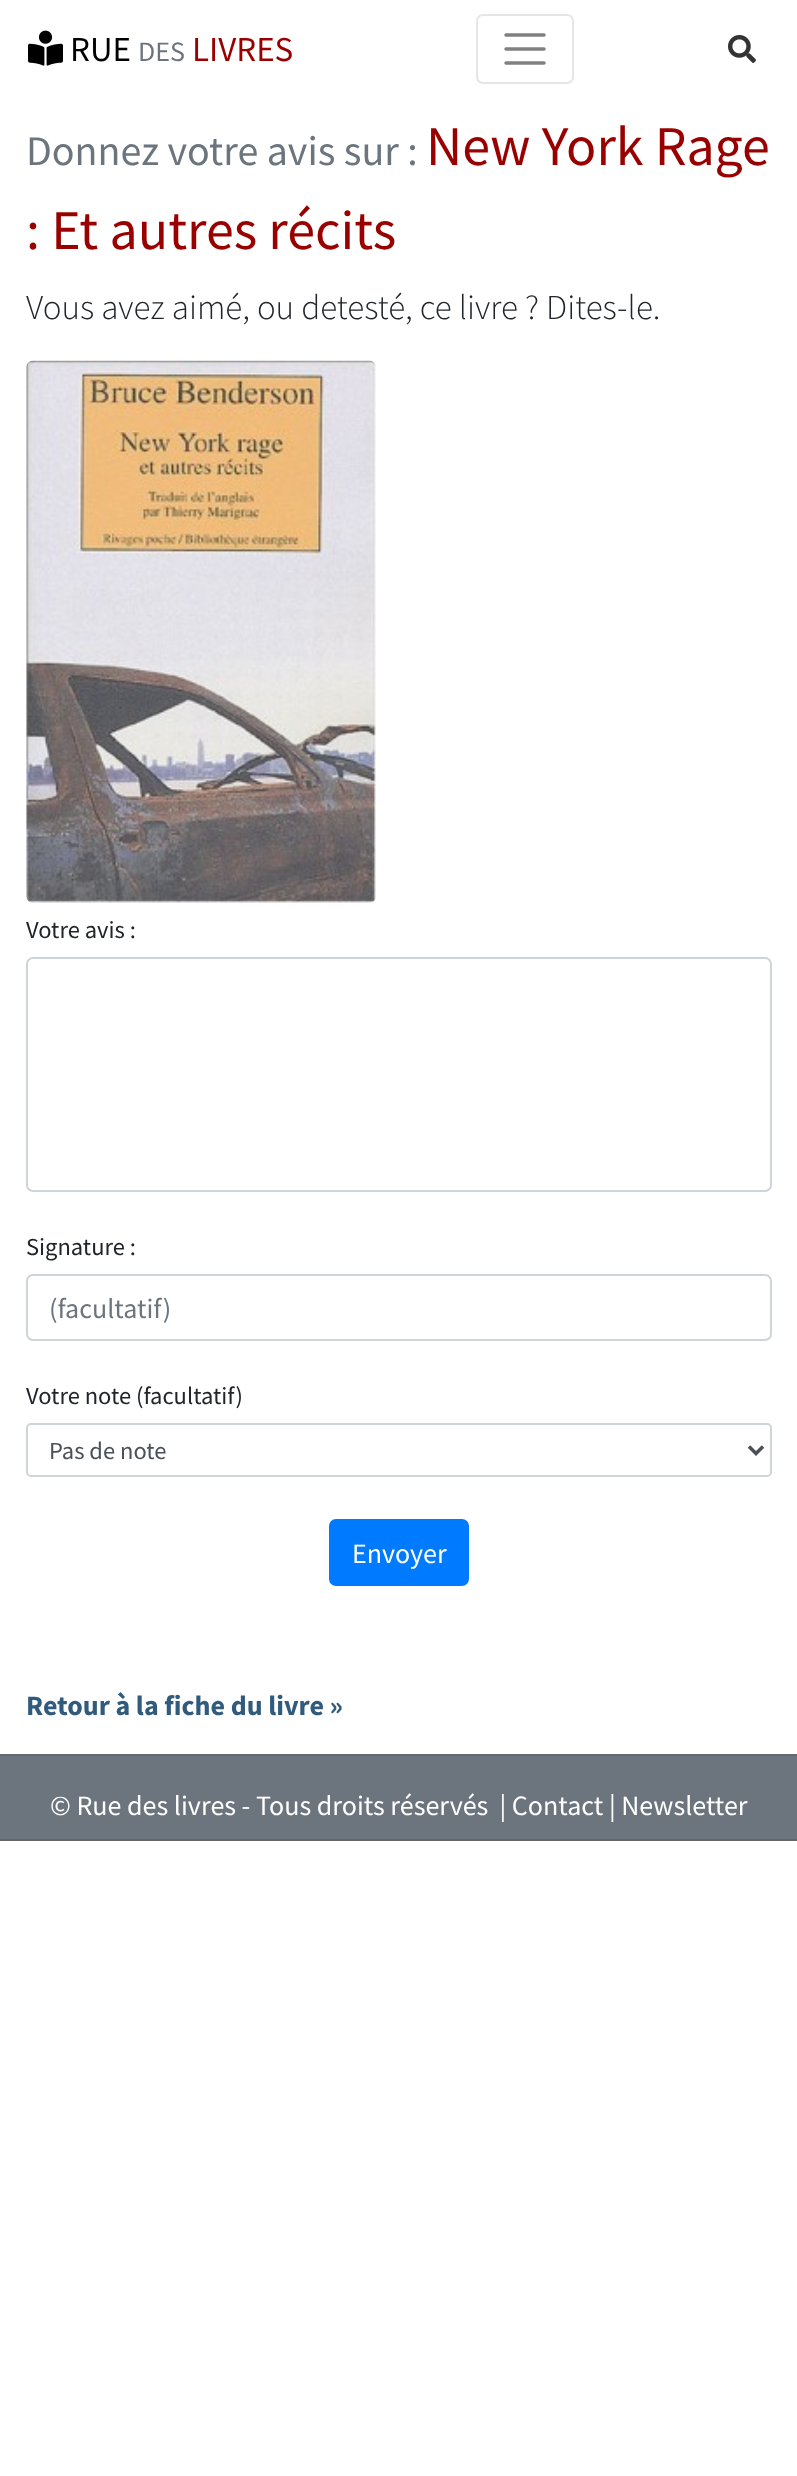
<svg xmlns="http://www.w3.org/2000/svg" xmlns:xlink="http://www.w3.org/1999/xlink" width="797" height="2476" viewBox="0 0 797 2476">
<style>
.cls-1{font:35px Source Sans Pro;fill:#000000}
.cls-2{font:28px Source Sans Pro;fill:#6c757d}
.cls-3{font:35px Source Sans Pro;fill:#990000}
.cls-4{font:42px Source Sans Pro;fill:#6c757d}
.cls-5{font:56px Source Sans Pro;fill:#990000}
.cls-6{font:300 35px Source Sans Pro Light;fill:#212529}
.cls-7{font:24.5px Source Sans Pro;fill:#212529}
.cls-8{font:24.5px Source Sans Pro;fill:#495057}
.cls-9{font:28px Source Sans Pro;fill:#ffffff}
.cls-10{font:bold 28px Source Sans Pro;fill:#315b7d}
</style>
<rect width="100%" height="100%" fill="#ffffff"/>
<image xlink:href="image0.png" x="28" y="30" width="35" height="36"/>
<rect fill="none" stroke="#e6e6e6" stroke-width="2" x="477" y="15" width="96" height="68" rx="6"/>
<path fill="none" stroke="#808080" stroke-width="3.5" stroke-linecap="round" d="M506 35H544M506 49H544M506 63H544"/>
<image xlink:href="image1.png" x="728" y="35" width="28" height="28"/>
<image xlink:href="image2.png" x="26" y="360" width="350" height="543"/>
<rect fill="none" stroke="#ced4da" stroke-width="2" x="27" y="958" width="744" height="233" rx="6"/>
<rect fill="none" stroke="#ced4da" stroke-width="2" x="27" y="1275" width="744" height="65" rx="6"/>
<rect fill="none" stroke="#ced4da" stroke-width="2" x="27" y="1424" width="744" height="52" rx="4"/>
<path fill="none" stroke="#495057" stroke-width="3.5" d="M749 1446.5L756 1453.5L763 1446.5"/>
<rect fill="#007bff" stroke="#007bff" stroke-width="2" x="330" y="1520" width="138" height="65" rx="6"/>
<rect fill="#6c757d" x="0" y="1756" width="797" height="83"/>
<rect fill="#666666" x="0" y="1839" width="797" height="2"/>
<rect fill="#616971" x="0" y="1754" width="797" height="2"/>
<text class="cls-1" x="70" y="61">RUE</text>
<text class="cls-2" x="138" y="61">DES</text>
<text class="cls-3" x="192" y="61">LIVRES</text>
<text class="cls-4" x="26" y="165">Donnez votre avis sur :</text>
<text class="cls-5" x="426" y="165">New York Rage</text>
<text class="cls-5" x="26" y="249">: Et autres récits</text>
<text class="cls-6" x="26" y="319">Vous avez aimé, ou detesté, ce livre ? Dites-le.</text>
<text class="cls-7" x="26" y="938">Votre avis :</text>
<text class="cls-7" x="26" y="1255">Signature :</text>
<text class="cls-2" x="49" y="1318">(facultatif)</text>
<text class="cls-7" x="26" y="1404">Votre note (facultatif)</text>
<text class="cls-8" x="49" y="1459">Pas de note</text>
<text class="cls-9" x="352" y="1563">Envoyer</text>
<text class="cls-10" x="26" y="1715">Retour à la fiche du livre »</text>
<text class="cls-9" xml:space="preserve" x="50" y="1815">© Rue des livres - Tous droits réservés  | Contact | Newsletter</text>
</svg>
